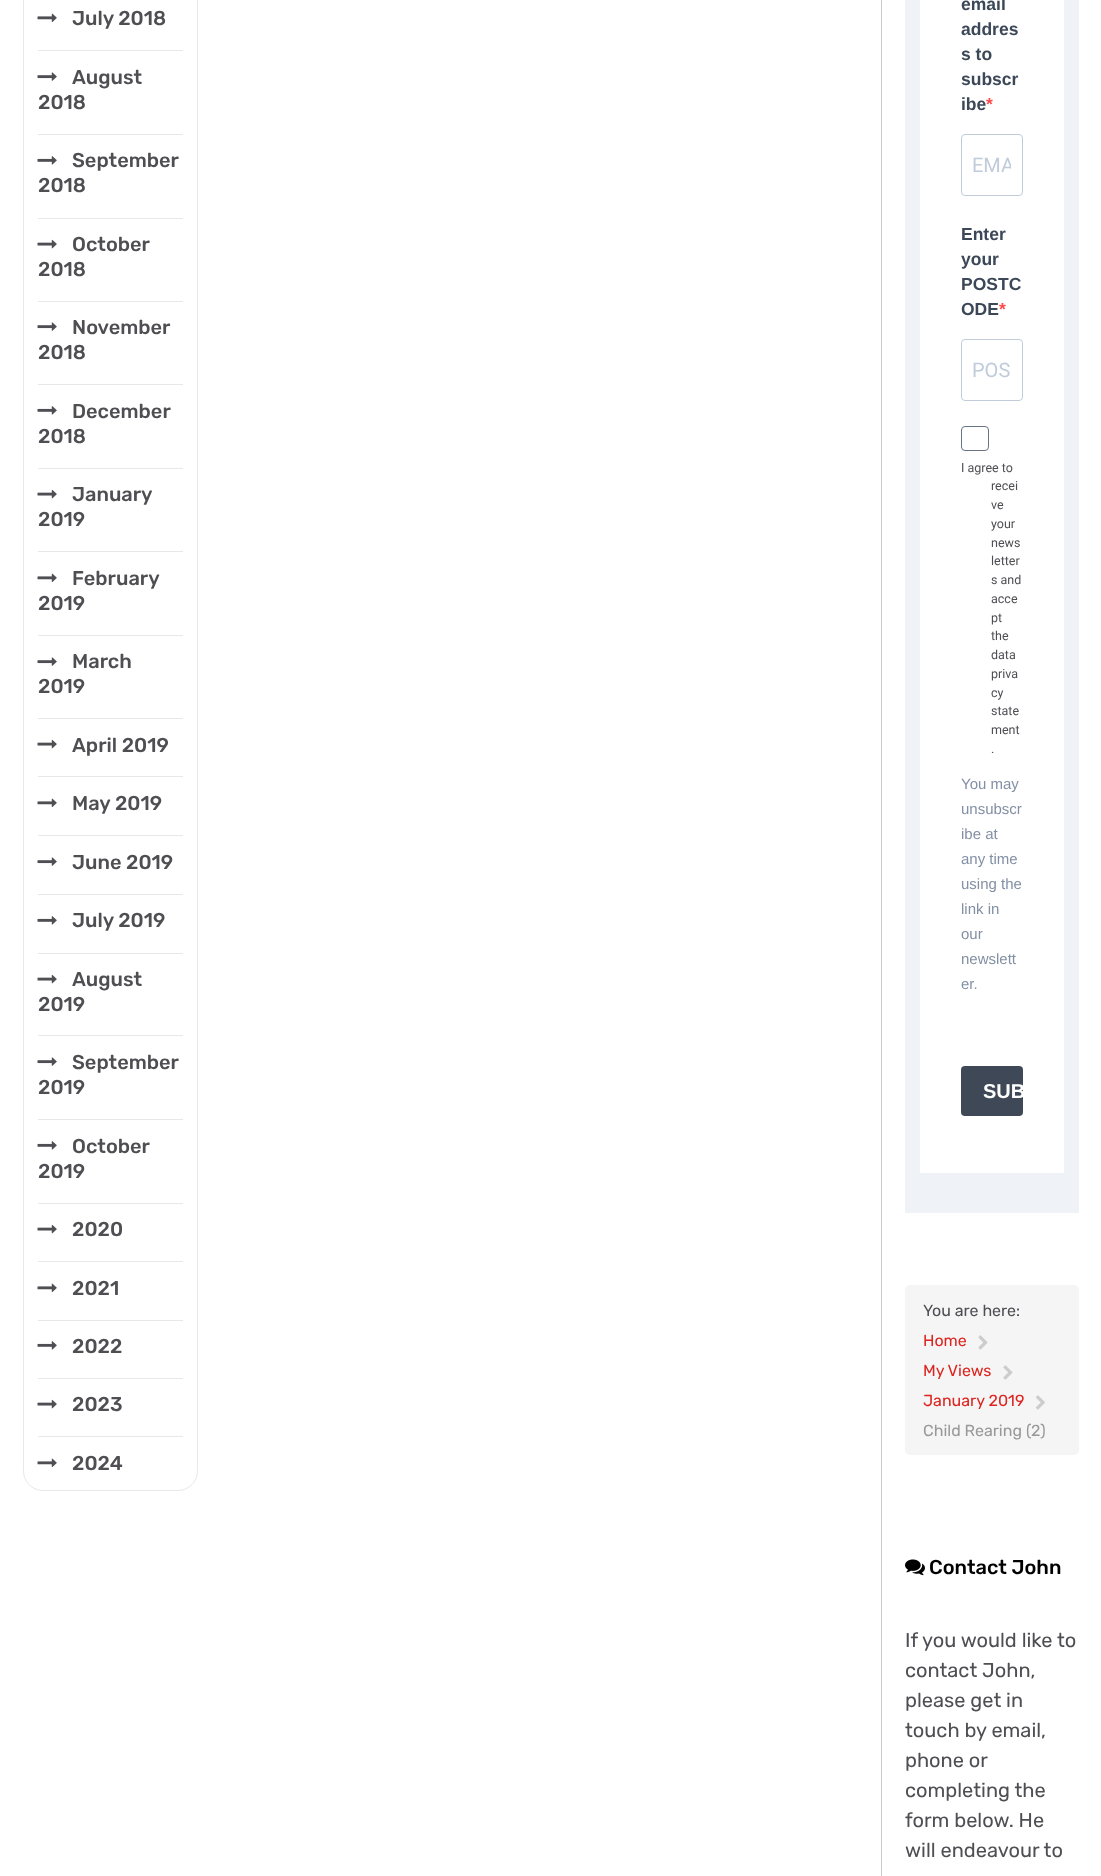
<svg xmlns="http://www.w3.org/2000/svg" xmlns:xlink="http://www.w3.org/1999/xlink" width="1101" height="1876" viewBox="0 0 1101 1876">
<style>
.cls-1{font:500 20px Rubik;fill:#4f4e53}
.cls-2{font:bold 17.5px Liberation Sans;fill:#3c4858}
.cls-3{font:bold 17.5px Liberation Sans;fill:#ff4949}
.cls-4{font:20px Roboto;fill:#c0ccda}
.cls-5{font:12.5px Roboto;fill:#4f4e53}
.cls-6{font:15px Liberation Sans;fill:#8390a4}
.cls-7{font:bold 20px Liberation Sans;fill:#ffffff}
.cls-8{font:16px Rubik;fill:#4f4e53}
.cls-9{font:16px Rubik;fill:#dc2520}
.cls-10{font:16px Rubik;fill:#999999}
.cls-11{font:500 20px Rubik;fill:#000000}
.cls-12{font:20px Rubik;fill:#4f4e53}
</style>
<defs>
<clipPath id="clip1"><rect x="973" y="154" width="38" height="24"/></clipPath>
</defs>
<rect width="100%" height="100%" fill="#ffffff"/>
<rect fill="none" stroke="#e7e8ea" x="23.5" y="-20.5" width="174" height="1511" rx="19.5"/>
<rect fill="#e7e8ea" x="38" y="50" width="145" height="1"/>
<image xlink:href="image0.png" x="37" y="13" width="20" height="10"/>
<rect fill="#e7e8ea" x="38" y="134" width="145" height="1"/>
<image xlink:href="image1.png" x="37" y="72" width="20" height="9"/>
<rect fill="#e7e8ea" x="38" y="218" width="145" height="1"/>
<image xlink:href="image2.png" x="37" y="156" width="20" height="9"/>
<rect fill="#e7e8ea" x="38" y="301" width="145" height="1"/>
<image xlink:href="image3.png" x="37" y="239" width="20" height="10"/>
<rect fill="#e7e8ea" x="38" y="384" width="145" height="1"/>
<image xlink:href="image1.png" x="37" y="322" width="20" height="9"/>
<rect fill="#e7e8ea" x="38" y="468" width="145" height="1"/>
<image xlink:href="image2.png" x="37" y="406" width="20" height="9"/>
<rect fill="#e7e8ea" x="38" y="551" width="145" height="1"/>
<image xlink:href="image3.png" x="37" y="489" width="20" height="10"/>
<rect fill="#e7e8ea" x="38" y="635" width="145" height="1"/>
<image xlink:href="image0.png" x="37" y="573" width="20" height="10"/>
<rect fill="#e7e8ea" x="38" y="718" width="145" height="1"/>
<image xlink:href="image1.png" x="37" y="657" width="20" height="9"/>
<rect fill="#e7e8ea" x="38" y="776" width="145" height="1"/>
<image xlink:href="image3.png" x="37" y="739" width="20" height="10"/>
<rect fill="#e7e8ea" x="38" y="835" width="145" height="1"/>
<image xlink:href="image0.png" x="37" y="798" width="20" height="10"/>
<rect fill="#e7e8ea" x="38" y="894" width="145" height="1"/>
<image xlink:href="image1.png" x="37" y="857" width="20" height="9"/>
<rect fill="#e7e8ea" x="38" y="953" width="145" height="1"/>
<image xlink:href="image2.png" x="37" y="916" width="20" height="9"/>
<rect fill="#e7e8ea" x="38" y="1035" width="145" height="1"/>
<image xlink:href="image3.png" x="37" y="974" width="20" height="10"/>
<rect fill="#e7e8ea" x="38" y="1119" width="145" height="1"/>
<image xlink:href="image1.png" x="37" y="1057" width="20" height="9"/>
<rect fill="#e7e8ea" x="38" y="1203" width="145" height="1"/>
<image xlink:href="image2.png" x="37" y="1141" width="20" height="9"/>
<rect fill="#e7e8ea" x="38" y="1261" width="145" height="1"/>
<image xlink:href="image3.png" x="37" y="1224" width="20" height="10"/>
<rect fill="#e7e8ea" x="38" y="1320" width="145" height="1"/>
<image xlink:href="image0.png" x="37" y="1283" width="20" height="10"/>
<rect fill="#e7e8ea" x="38" y="1378" width="145" height="1"/>
<image xlink:href="image2.png" x="37" y="1341" width="20" height="9"/>
<rect fill="#e7e8ea" x="38" y="1436" width="145" height="1"/>
<image xlink:href="image3.png" x="37" y="1399" width="20" height="10"/>
<image xlink:href="image0.png" x="37" y="1458" width="20" height="10"/>
<rect fill="#cacacb" x="881" y="0" width="1" height="1876"/>
<rect fill="#eff2f7" x="905" y="0" width="174" height="1213"/>
<rect fill="#ffffff" x="920" y="0" width="144" height="1173"/>
<rect fill="none" stroke="#c0ccda" x="961.5" y="134.5" width="61" height="61" rx="3.5"/>
<rect fill="none" stroke="#c0ccda" x="961.5" y="339.5" width="61" height="61" rx="3.5"/>
<rect fill="none" stroke="#687484" x="961.5" y="426.5" width="27" height="24" rx="3.5"/>
<rect fill="#3e4857" x="961" y="1066" width="62" height="50" rx="4"/>
<rect fill="#f5f5f5" x="905" y="1285" width="174" height="170" rx="5"/>
<image xlink:href="image4.png" x="978" y="1335" width="10" height="15"/>
<image xlink:href="image4.png" x="1003" y="1365" width="10" height="15"/>
<image xlink:href="image5.png" x="1036" y="1395" width="9" height="15"/>
<image xlink:href="image6.png" x="905" y="1559" width="20" height="17"/>
<text class="cls-1" x="72" y="25">July 2018</text>
<text class="cls-1" x="72" y="84">August</text>
<text class="cls-1" x="38" y="109">2018</text>
<text class="cls-1" x="72" y="167">September</text>
<text class="cls-1" x="38" y="192">2018</text>
<text class="cls-1" x="72" y="251">October</text>
<text class="cls-1" x="38" y="276">2018</text>
<text class="cls-1" x="72" y="334">November</text>
<text class="cls-1" x="38" y="359">2018</text>
<text class="cls-1" x="72" y="418">December</text>
<text class="cls-1" x="38" y="443">2018</text>
<text class="cls-1" x="72" y="501">January</text>
<text class="cls-1" x="38" y="526">2019</text>
<text class="cls-1" x="72" y="585">February</text>
<text class="cls-1" x="38" y="610">2019</text>
<text class="cls-1" x="72" y="668">March</text>
<text class="cls-1" x="38" y="693">2019</text>
<text class="cls-1" x="72" y="752">April 2019</text>
<text class="cls-1" x="72" y="810">May 2019</text>
<text class="cls-1" x="72" y="869">June 2019</text>
<text class="cls-1" x="72" y="927">July 2019</text>
<text class="cls-1" x="72" y="986">August</text>
<text class="cls-1" x="38" y="1011">2019</text>
<text class="cls-1" x="72" y="1069">September</text>
<text class="cls-1" x="38" y="1094">2019</text>
<text class="cls-1" x="72" y="1153">October</text>
<text class="cls-1" x="38" y="1178">2019</text>
<text class="cls-1" x="72" y="1236">2020</text>
<text class="cls-1" x="72" y="1295">2021</text>
<text class="cls-1" x="72" y="1353">2022</text>
<text class="cls-1" x="72" y="1411">2023</text>
<text class="cls-1" x="72" y="1470">2024</text>
<text class="cls-2"><tspan x="961" y="10">email</tspan><tspan x="961" y="35">addres</tspan><tspan x="961" y="60">s to</tspan><tspan x="961" y="85">subscr</tspan><tspan x="961" y="110">ibe</tspan></text>
<text class="cls-3" x="986" y="110">*</text>
<g clip-path="url(#clip1)">
<text class="cls-4" x="972" y="172">EMA</text>
</g>
<text class="cls-2"><tspan x="961" y="240">Enter</tspan><tspan x="961" y="265">your</tspan><tspan x="961" y="290">POSTC</tspan><tspan x="961" y="315">ODE</tspan></text>
<text class="cls-3" x="999" y="315">*</text>
<text class="cls-4" x="972" y="377">POS</text>
<text class="cls-5" x="961" y="472">I agree to</text>
<text class="cls-5"><tspan x="991" y="490">recei</tspan><tspan x="991" y="509">ve</tspan><tspan x="991" y="528">your</tspan><tspan x="991" y="547">news</tspan><tspan x="991" y="565">letter</tspan><tspan x="991" y="584">s and</tspan><tspan x="991" y="603">acce</tspan><tspan x="991" y="622">pt</tspan><tspan x="991" y="640">the</tspan><tspan x="991" y="659">data</tspan><tspan x="991" y="678">priva</tspan><tspan x="991" y="697">cy</tspan><tspan x="991" y="715">state</tspan><tspan x="991" y="734">ment</tspan><tspan x="991" y="753">.</tspan></text>
<text class="cls-6"><tspan x="961" y="789">You may</tspan><tspan x="961" y="814">unsubscr</tspan><tspan x="961" y="839">ibe at</tspan><tspan x="961" y="864">any time</tspan><tspan x="961" y="889">using the</tspan><tspan x="961" y="914">link in</tspan><tspan x="961" y="939">our</tspan><tspan x="961" y="964">newslett</tspan><tspan x="961" y="989">er.</tspan></text>
<text class="cls-7" x="983" y="1098">SUB</text>
<text class="cls-8" x="923" y="1316">You are here:</text>
<text class="cls-9"><tspan x="923" y="1346">Home</tspan><tspan x="923" y="1376">My Views</tspan><tspan x="923" y="1406">January 2019</tspan></text>
<text class="cls-10" x="923" y="1436">Child Rearing (2)</text>
<text class="cls-11" x="929" y="1574">Contact John</text>
<text class="cls-12"><tspan x="905" y="1647">If you would like to</tspan><tspan x="905" y="1677">contact John,</tspan><tspan x="905" y="1707">please get in</tspan><tspan x="905" y="1737">touch by email,</tspan><tspan x="905" y="1767">phone or</tspan><tspan x="905" y="1797">completing the</tspan><tspan x="905" y="1827">form below. He</tspan><tspan x="905" y="1857">will endeavour to</tspan></text>
</svg>
